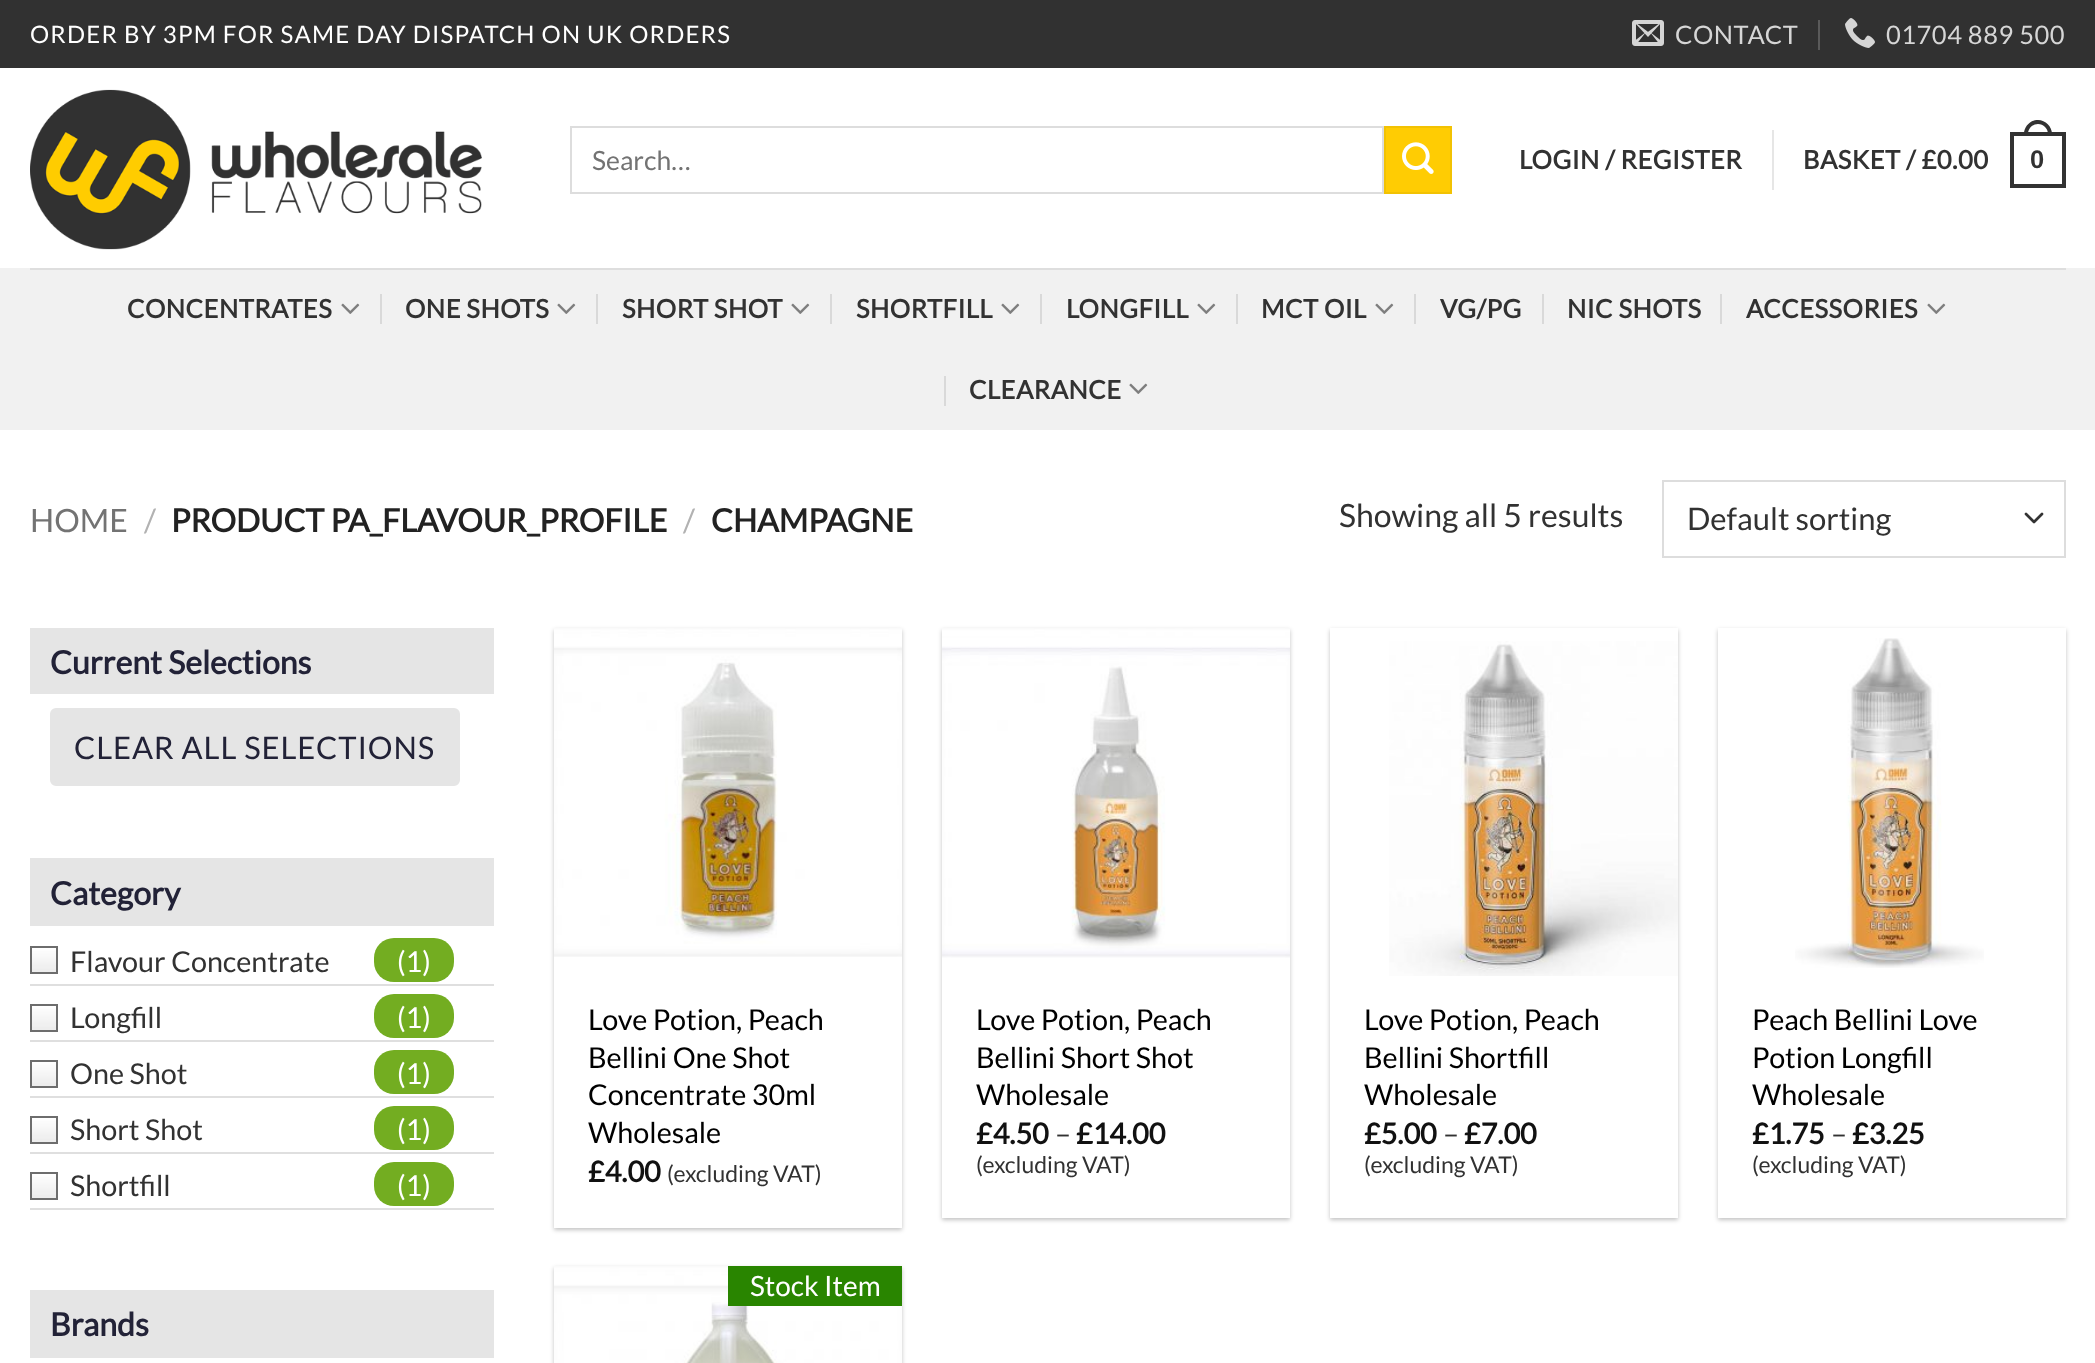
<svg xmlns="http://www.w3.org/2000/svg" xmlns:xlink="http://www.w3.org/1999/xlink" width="2095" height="1363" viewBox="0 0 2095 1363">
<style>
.cls-1{font:24px Lato;letter-spacing:1.2px;fill:#ffffff}
.cls-2{font:25.5px Lato;letter-spacing:0.5px;fill:#d6d6d6}
.cls-3{font:26.5px Lato;fill:#737373}
.cls-4{font:bold 25.5px Lato;letter-spacing:0.5px;fill:#323232}
.cls-5{font:bold 25.5px Liberation Sans;letter-spacing:0.5px;fill:#323232}
.cls-6{font:32px Lato;fill:#737373}
.cls-7{font:32px Lato;fill:#b2b2b2}
.cls-8{font:bold 32px Lato;fill:#222222}
.cls-9{font:32px Lato;fill:#323232}
.cls-10{font:31px Lato;fill:#323232}
.cls-11{font:bold 32px Lato;fill:#222237}
.cls-12{font:31px Lato;letter-spacing:0.9px;fill:#222237}
.cls-13{font:28.75px Lato;fill:#323232}
.cls-14{font:28.75px Lato;fill:#ffffff}
.cls-15{font:28.75px Lato;fill:#000000}
.cls-16{font:bold 28.75px Lato;fill:#111111}
.cls-17{font:23px Lato;fill:#323232}
.cls-18{font:28px Lato;fill:#ffffff}
</style>
<defs>
<clipPath id="clip1"><path d="M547 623H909V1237H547ZM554 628H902V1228H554Z" clip-rule="evenodd"/></clipPath>
<clipPath id="clip2"><path d="M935 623H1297V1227H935ZM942 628H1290V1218H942Z" clip-rule="evenodd"/></clipPath>
<clipPath id="clip3"><path d="M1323 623H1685V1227H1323ZM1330 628H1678V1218H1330Z" clip-rule="evenodd"/></clipPath>
<clipPath id="clip4"><path d="M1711 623H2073V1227H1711ZM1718 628H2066V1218H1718Z" clip-rule="evenodd"/></clipPath>
</defs>
<rect width="100%" height="100%" fill="#ffffff"/>
<rect fill="#313131" x="0" y="0" width="2095" height="68"/>
<image xlink:href="image0.png" x="1632" y="20" width="32" height="26"/>
<rect fill="#5a5a5a" x="1818" y="20" width="2" height="30"/>
<image xlink:href="image1.png" x="1845" y="18" width="30" height="30"/>
<image xlink:href="image2.png" x="30" y="89" width="452" height="161"/>
<rect fill="none" stroke="#dddddd" stroke-width="2" x="571" y="127" width="812" height="66"/>
<rect fill="#ffcc03" stroke="#f2c203" stroke-width="2" x="1385" y="127" width="66" height="66"/>
<image xlink:href="image3.png" x="1402" y="142" width="32" height="32"/>
<rect fill="#e6e6e6" x="1772" y="130" width="2" height="60"/>
<rect fill="none" stroke="#323232" stroke-width="4" x="2012" y="134" width="52" height="52"/>
<path fill="#323232" fill-rule="evenodd" d="M2038 120C2045.5 120 2052 126.5 2052 134V136H2024V134C2024 126.5 2030.5 120 2038 120ZM2038 124C2043.5 124 2048 128.5 2048 134V136H2028V134C2028 128.5 2032.5 124 2038 124Z"/>
<rect fill="#f1f1f1" x="0" y="268" width="2095" height="162"/>
<rect fill="#dedede" x="30" y="268" width="2036" height="2"/>
<image xlink:href="image4.png" x="341" y="303" width="19" height="11"/>
<rect fill="#d9d9d9" x="380" y="294" width="2" height="30"/>
<image xlink:href="image4.png" x="557" y="303" width="19" height="11"/>
<rect fill="#d9d9d9" x="596" y="294" width="2" height="30"/>
<image xlink:href="image4.png" x="791" y="303" width="19" height="11"/>
<rect fill="#d9d9d9" x="830" y="294" width="2" height="30"/>
<image xlink:href="image4.png" x="1001" y="303" width="19" height="11"/>
<rect fill="#d9d9d9" x="1040" y="294" width="2" height="30"/>
<image xlink:href="image4.png" x="1197" y="303" width="19" height="11"/>
<rect fill="#d9d9d9" x="1236" y="294" width="2" height="30"/>
<image xlink:href="image4.png" x="1375" y="303" width="19" height="11"/>
<rect fill="#d9d9d9" x="1414" y="294" width="2" height="30"/>
<rect fill="#d9d9d9" x="1542" y="294" width="2" height="30"/>
<rect fill="#d9d9d9" x="1720" y="294" width="2" height="30"/>
<image xlink:href="image4.png" x="1927" y="303" width="19" height="11"/>
<rect fill="#d9d9d9" x="944" y="376" width="2" height="30"/>
<image xlink:href="image4.png" x="1129" y="383" width="19" height="11"/>
<path fill="none" stroke="#333333" stroke-width="2.7" stroke-linecap="round" stroke-linejoin="round" d="M2026 514L2034 522L2042 514"/>
<rect fill="none" stroke="#dddddd" stroke-width="2" x="1663" y="481" width="402" height="76"/>
<rect fill="#e5e5e5" x="30" y="628" width="464" height="66"/>
<rect fill="#e5e5e5" stroke="#e5e5e5" stroke-width="4" x="52" y="710" width="406" height="74" rx="4"/>
<rect fill="#e5e5e5" x="30" y="858" width="464" height="68"/>
<image xlink:href="image5.png" x="30" y="946" width="28" height="28"/>
<rect fill="#dfdfdf" x="30" y="984" width="464" height="2"/>
<rect fill="#73ad21" x="374" y="938" width="80" height="44" rx="20"/>
<image xlink:href="image5.png" x="30" y="1004" width="28" height="28"/>
<rect fill="#dfdfdf" x="30" y="1040" width="464" height="2"/>
<rect fill="#73ad21" x="374" y="994" width="80" height="44" rx="20"/>
<image xlink:href="image5.png" x="30" y="1060" width="28" height="28"/>
<rect fill="#dfdfdf" x="30" y="1096" width="464" height="2"/>
<rect fill="#73ad21" x="374" y="1050" width="80" height="44" rx="20"/>
<image xlink:href="image5.png" x="30" y="1116" width="28" height="28"/>
<rect fill="#dfdfdf" x="30" y="1152" width="464" height="2"/>
<rect fill="#73ad21" x="374" y="1106" width="80" height="44" rx="20"/>
<image xlink:href="image5.png" x="30" y="1172" width="28" height="28"/>
<rect fill="#dfdfdf" x="30" y="1208" width="464" height="2"/>
<rect fill="#73ad21" x="374" y="1162" width="80" height="44" rx="20"/>
<rect fill="#e5e5e5" x="30" y="1290" width="464" height="68"/>
<g clip-path="url(#clip1)">
<rect fill="#000000" fill-opacity="0.24" filter="blur(2px)" x="554" y="630" width="348" height="600"/>
</g>
<image xlink:href="image6.png" x="554" y="628" width="348" height="329"/>
<g clip-path="url(#clip2)">
<rect fill="#000000" fill-opacity="0.24" filter="blur(2px)" x="942" y="630" width="348" height="590"/>
</g>
<image xlink:href="image7.png" x="942" y="628" width="348" height="330"/>
<g clip-path="url(#clip3)">
<rect fill="#000000" fill-opacity="0.24" filter="blur(2px)" x="1330" y="630" width="348" height="590"/>
</g>
<image xlink:href="image8.png" x="1389" y="641" width="289" height="335"/>
<g clip-path="url(#clip4)">
<rect fill="#000000" fill-opacity="0.24" filter="blur(2px)" x="1718" y="630" width="348" height="590"/>
</g>
<image xlink:href="image9.png" x="1795" y="638" width="189" height="330"/>
<rect fill="#000000" fill-opacity="0.24" filter="blur(2px)" x="554" y="1268" width="348" height="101"/>
<image xlink:href="image10.png" x="554" y="1266" width="348" height="97"/>
<rect fill="#298500" x="728" y="1266" width="174" height="40"/>
<text class="cls-1" x="30" y="43">ORDER BY 3PM FOR SAME DAY DISPATCH ON UK ORDERS</text>
<text class="cls-2" x="1675" y="44">CONTACT</text>
<text class="cls-2" x="1886" y="44">01704 889 500</text>
<text class="cls-3" x="592" y="170">Search…</text>
<text class="cls-4" x="1519" y="169">LOGIN / REGISTER</text>
<text class="cls-4" x="1803" y="169">BASKET / £0.00</text>
<text class="cls-5" x="2030" y="168">0</text>
<text class="cls-4" x="127" y="318">CONCENTRATES</text>
<text class="cls-4" x="405" y="318">ONE SHOTS</text>
<text class="cls-4" x="622" y="318">SHORT SHOT</text>
<text class="cls-4" x="856" y="318">SHORTFILL</text>
<text class="cls-4" x="1066" y="318">LONGFILL</text>
<text class="cls-4" x="1261" y="318">MCT OIL</text>
<text class="cls-4" x="1440" y="318">VG/PG</text>
<text class="cls-4" x="1567" y="318">NIC SHOTS</text>
<text class="cls-4" x="1746" y="318">ACCESSORIES</text>
<text class="cls-4" x="969" y="399">CLEARANCE</text>
<text class="cls-6" x="30" y="532">HOME</text>
<text class="cls-7" x="144" y="532">/</text>
<text class="cls-8" x="171" y="532">PRODUCT PA_FLAVOUR_PROFILE</text>
<text class="cls-7" x="683" y="532">/</text>
<text class="cls-8" x="711" y="532">CHAMPAGNE</text>
<text class="cls-9" x="1339" y="527">Showing all 5 results</text>
<text class="cls-10" x="1687" y="530">Default sorting</text>
<text class="cls-11" x="50" y="674">Current Selections</text>
<text class="cls-12" x="74" y="759">CLEAR ALL SELECTIONS</text>
<text class="cls-11" x="50" y="905">Category</text>
<text class="cls-13" x="70" y="972">Flavour Concentrate</text>
<text class="cls-14" x="397" y="972">(1)</text>
<text class="cls-13" x="70" y="1028">Longfill</text>
<text class="cls-14" x="397" y="1028">(1)</text>
<text class="cls-13" x="70" y="1084">One Shot</text>
<text class="cls-14" x="397" y="1084">(1)</text>
<text class="cls-13" x="70" y="1140">Short Shot</text>
<text class="cls-14" x="397" y="1140">(1)</text>
<text class="cls-13" x="70" y="1196">Shortfill</text>
<text class="cls-14" x="397" y="1196">(1)</text>
<text class="cls-11" x="50" y="1336">Brands</text>
<text class="cls-15"><tspan x="588" y="1030">Love Potion, Peach</tspan><tspan x="588" y="1068">Bellini One Shot</tspan><tspan x="588" y="1105">Concentrate 30ml</tspan><tspan x="588" y="1143">Wholesale</tspan></text>
<text class="cls-16" x="588" y="1182">£4.00</text>
<text class="cls-17" x="667" y="1182">(excluding VAT)</text>
<text class="cls-15"><tspan x="976" y="1030">Love Potion, Peach</tspan><tspan x="976" y="1068">Bellini Short Shot</tspan><tspan x="976" y="1105">Wholesale</tspan></text>
<text class="cls-16" x="976" y="1144">£4.50</text>
<text class="cls-13" x="1055" y="1144">–</text>
<text class="cls-16" x="1076" y="1144">£14.00</text>
<text class="cls-17" x="976" y="1173">(excluding VAT)</text>
<text class="cls-15"><tspan x="1364" y="1030">Love Potion, Peach</tspan><tspan x="1364" y="1068">Bellini Shortfill</tspan><tspan x="1364" y="1105">Wholesale</tspan></text>
<text class="cls-16" x="1364" y="1144">£5.00</text>
<text class="cls-13" x="1443" y="1144">–</text>
<text class="cls-16" x="1464" y="1144">£7.00</text>
<text class="cls-17" x="1364" y="1173">(excluding VAT)</text>
<text class="cls-15"><tspan x="1752" y="1030">Peach Bellini Love</tspan><tspan x="1752" y="1068">Potion Longfill</tspan><tspan x="1752" y="1105">Wholesale</tspan></text>
<text class="cls-16" x="1752" y="1144">£1.75</text>
<text class="cls-13" x="1831" y="1144">–</text>
<text class="cls-16" x="1852" y="1144">£3.25</text>
<text class="cls-17" x="1752" y="1173">(excluding VAT)</text>
<text class="cls-18" x="750" y="1296">Stock Item</text>
</svg>
